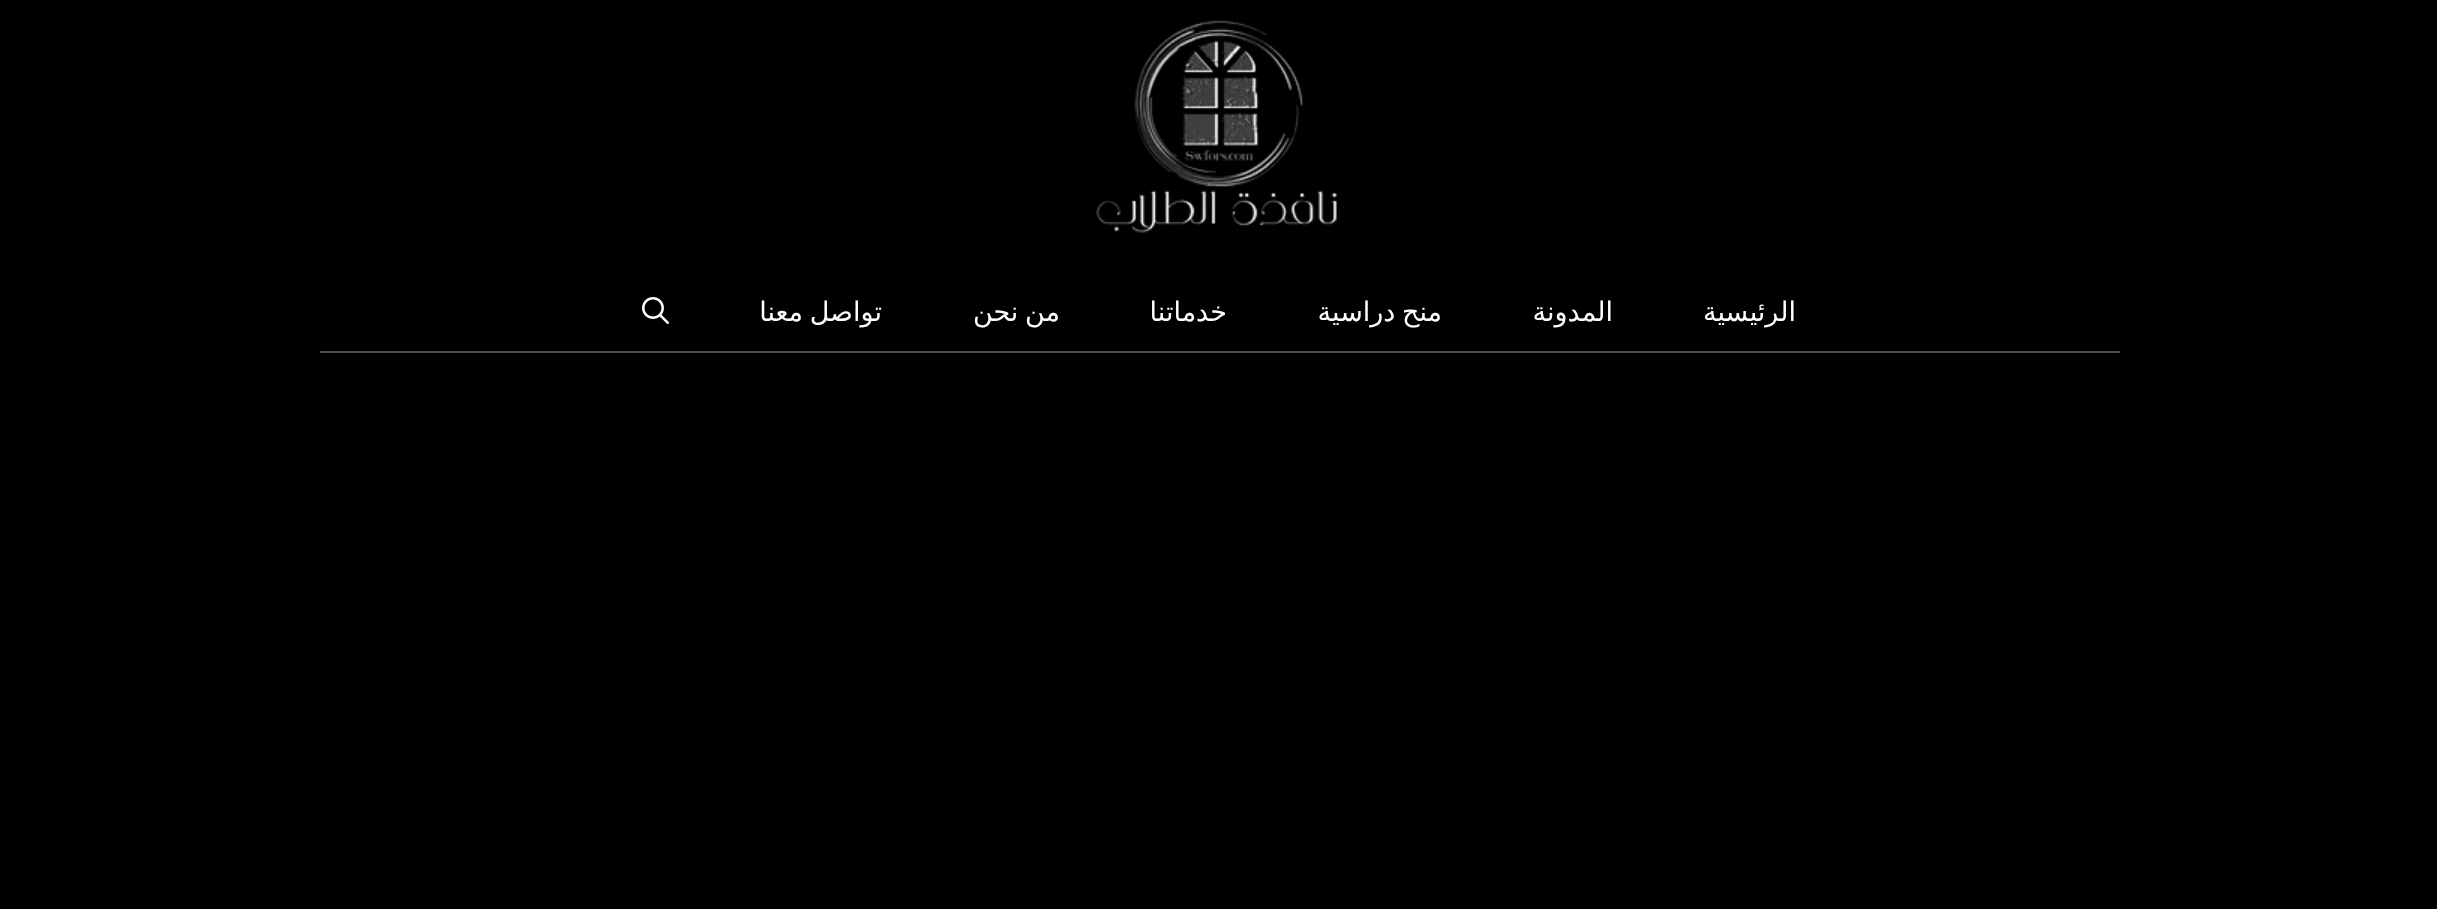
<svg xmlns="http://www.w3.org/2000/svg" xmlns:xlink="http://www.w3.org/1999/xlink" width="2437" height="909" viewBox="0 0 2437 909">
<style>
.cls-1{font:27px DejaVu Sans;direction:rtl;fill:#ffffff}
</style>
<rect width="100%" height="100%" fill="#000000"/>
<image xlink:href="image0.png" x="1096" y="20" width="242" height="213"/>
<rect fill="#4d4d4d" x="320" y="351" width="1800" height="2"/>
<image xlink:href="image1.png" x="642" y="297" width="27" height="27"/>
<text class="cls-1" x="1796" y="321">الرئيسية</text>
<text class="cls-1" x="1613" y="321">المدونة</text>
<text class="cls-1" x="1442" y="321" word-spacing="-2">منح دراسية</text>
<text class="cls-1" x="1227" y="321">خدماتنا</text>
<text class="cls-1" x="1060" y="321" word-spacing="-2">من نحن</text>
<text class="cls-1" x="882" y="321" word-spacing="-2">تواصل معنا</text>
</svg>
